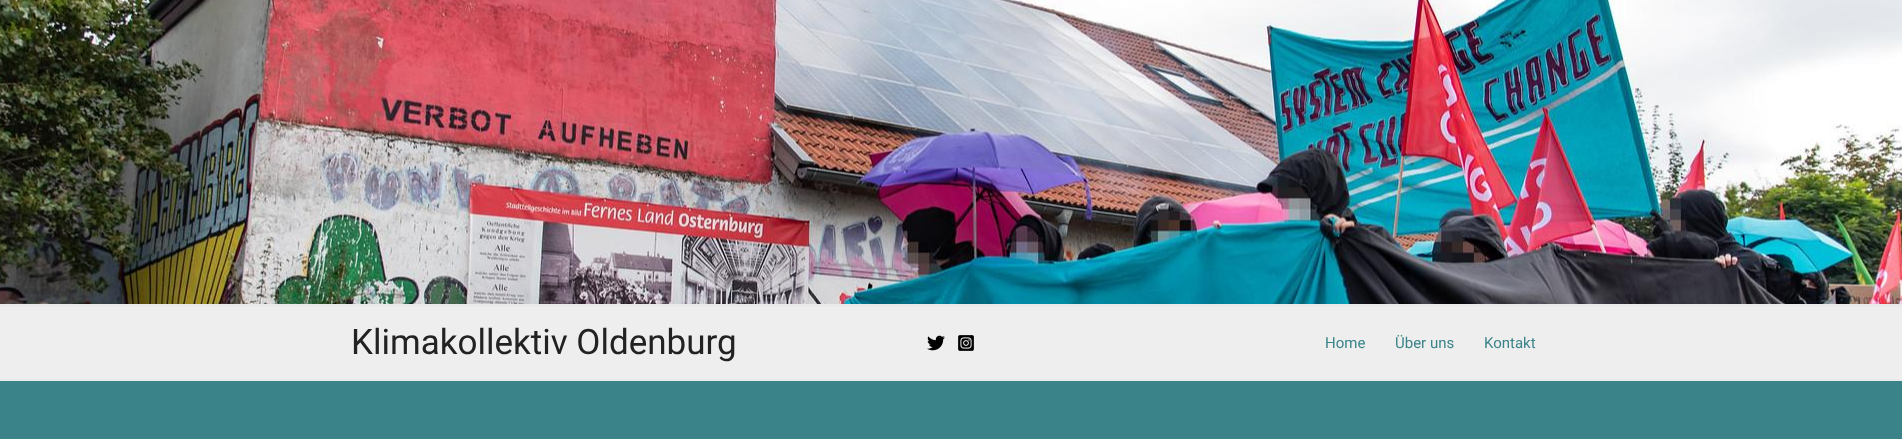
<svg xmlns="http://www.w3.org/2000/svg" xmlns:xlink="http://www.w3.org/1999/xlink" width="1902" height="439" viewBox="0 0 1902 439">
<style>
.cls-1{font:35px Roboto;fill:#222222}
.cls-2{font:15px Roboto;fill:#3a8489}
</style>
<rect width="100%" height="100%" fill="#3a8489"/>
<image xlink:href="image0.png" x="0" y="0" width="1902" height="304"/>
<rect fill="#eaeaea" x="0" y="304" width="1902" height="3"/>
<rect fill="#eeeeee" x="0" y="307" width="1902" height="72"/>
<rect fill="#eaeaea" x="0" y="379" width="1902" height="2"/>
<image xlink:href="image1.png" x="927" y="335" width="18" height="16"/>
<image xlink:href="image2.png" x="958" y="335" width="16" height="16"/>
<text class="cls-1" x="351" y="354">Klimakollektiv Oldenburg</text>
<text class="cls-2" x="1325" y="348">Home</text>
<text class="cls-2" x="1395" y="348">Über uns</text>
<text class="cls-2" x="1484" y="348">Kontakt</text>
</svg>
